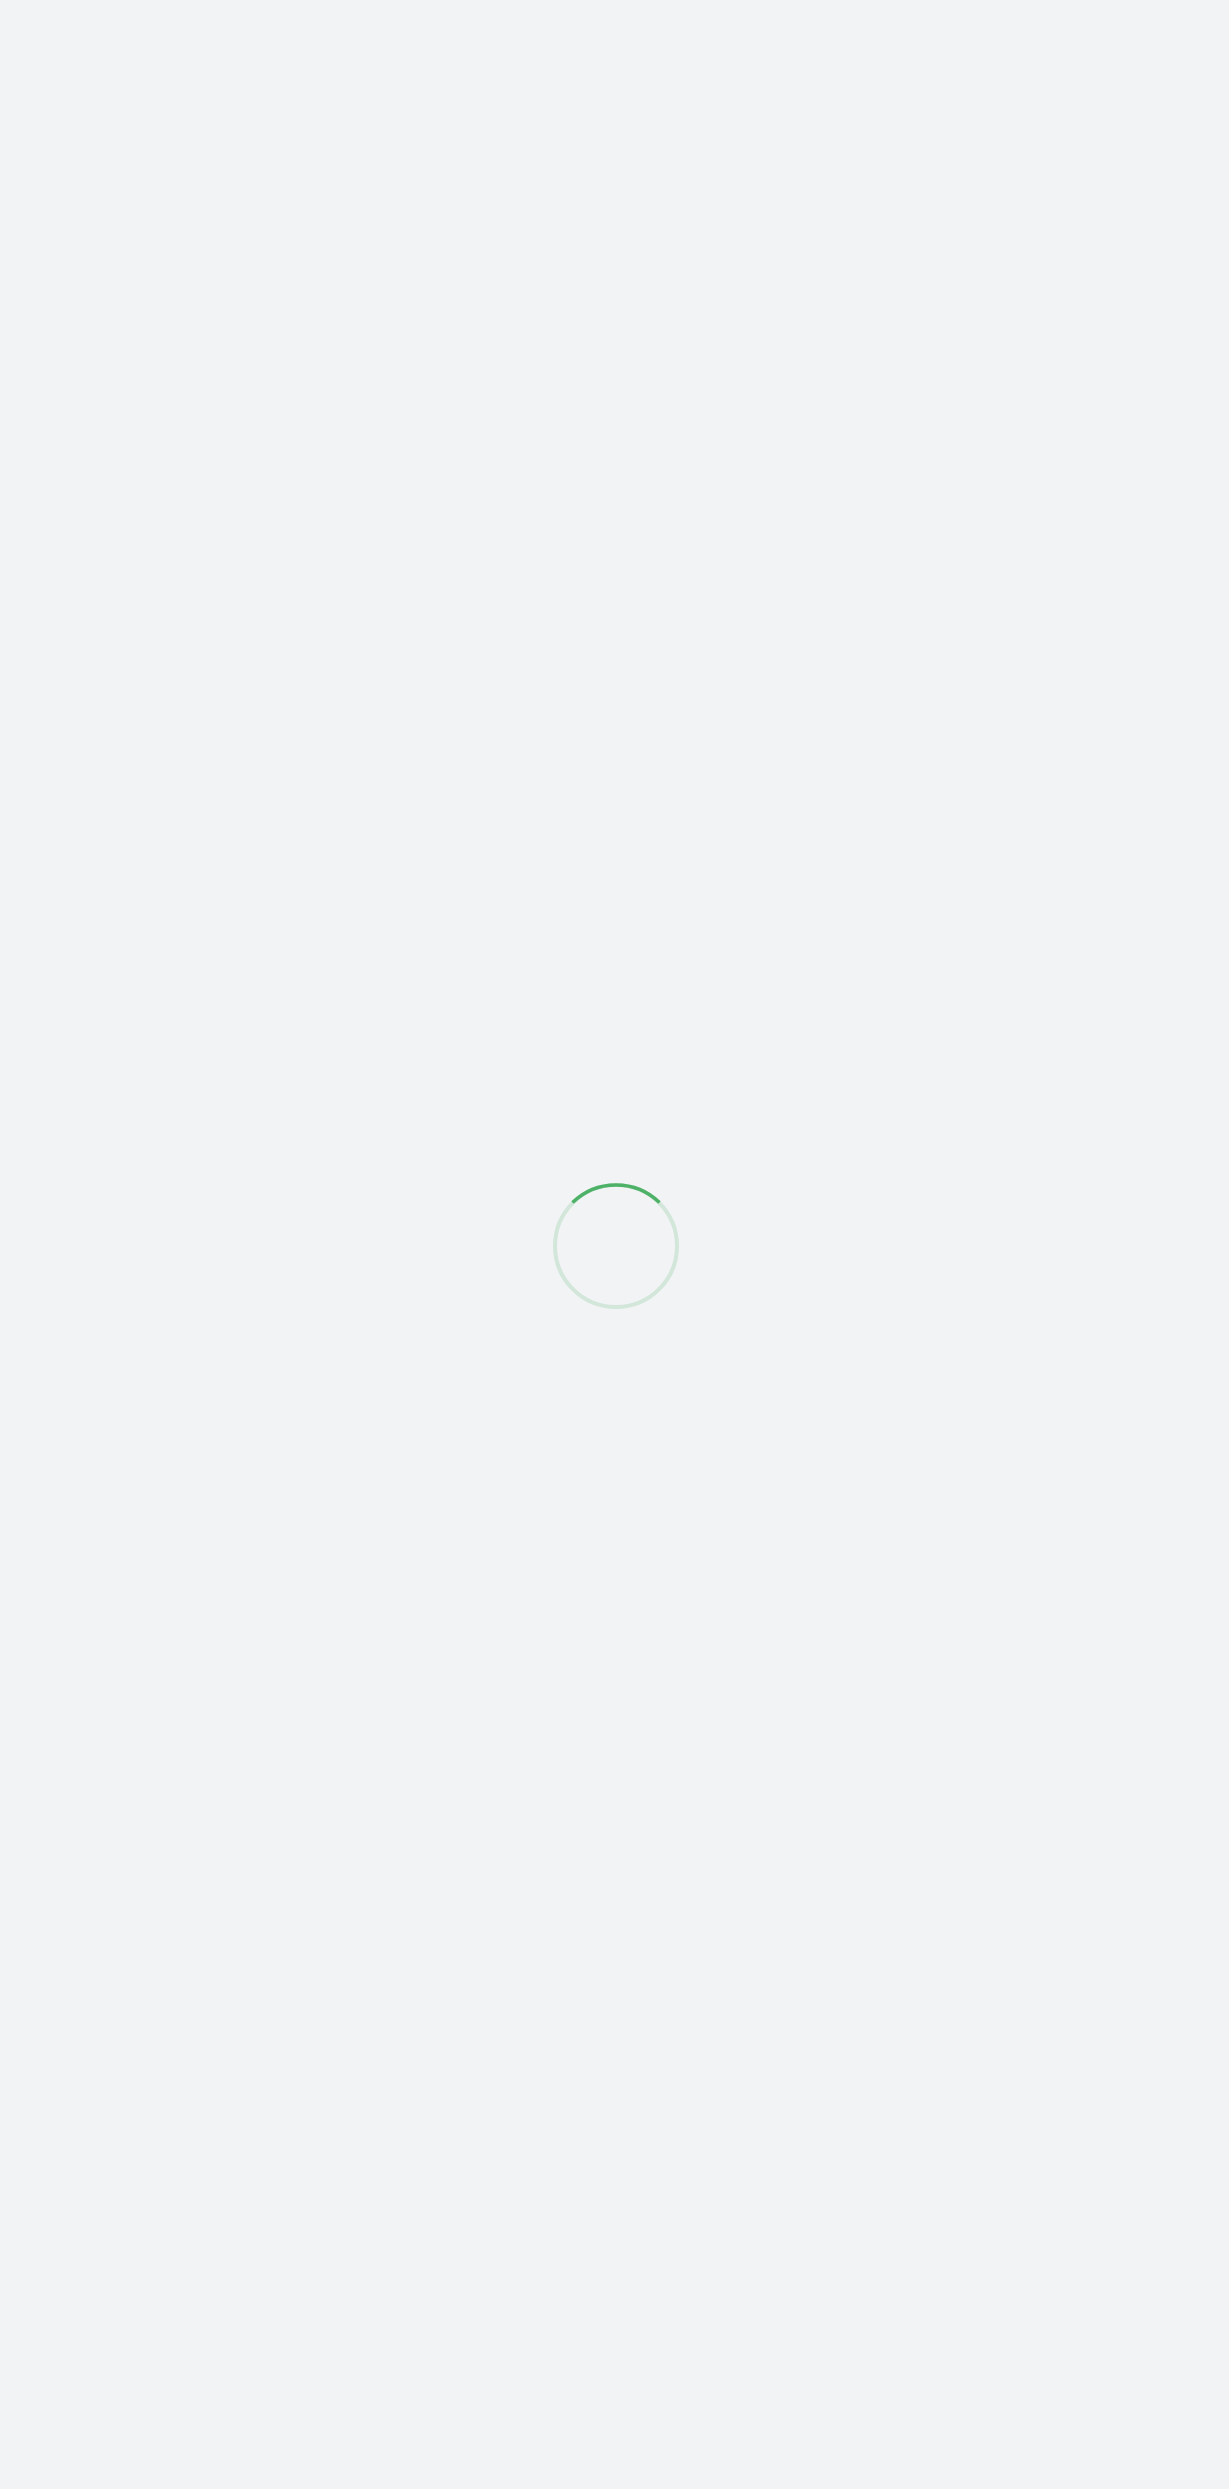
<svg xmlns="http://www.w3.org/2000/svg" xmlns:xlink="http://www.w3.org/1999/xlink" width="1229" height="2489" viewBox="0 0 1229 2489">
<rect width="100%" height="100%" fill="#f2f3f5"/>
<circle fill="none" stroke="#d2e6da" stroke-width="4" cx="616" cy="1246" r="61"/>
<path fill="none" stroke="#2ca44a" stroke-opacity="0.8" stroke-width="3.5" d="M572.5 1202.5C596.5 1179 635.5 1179 659.5 1202.5"/>
</svg>
